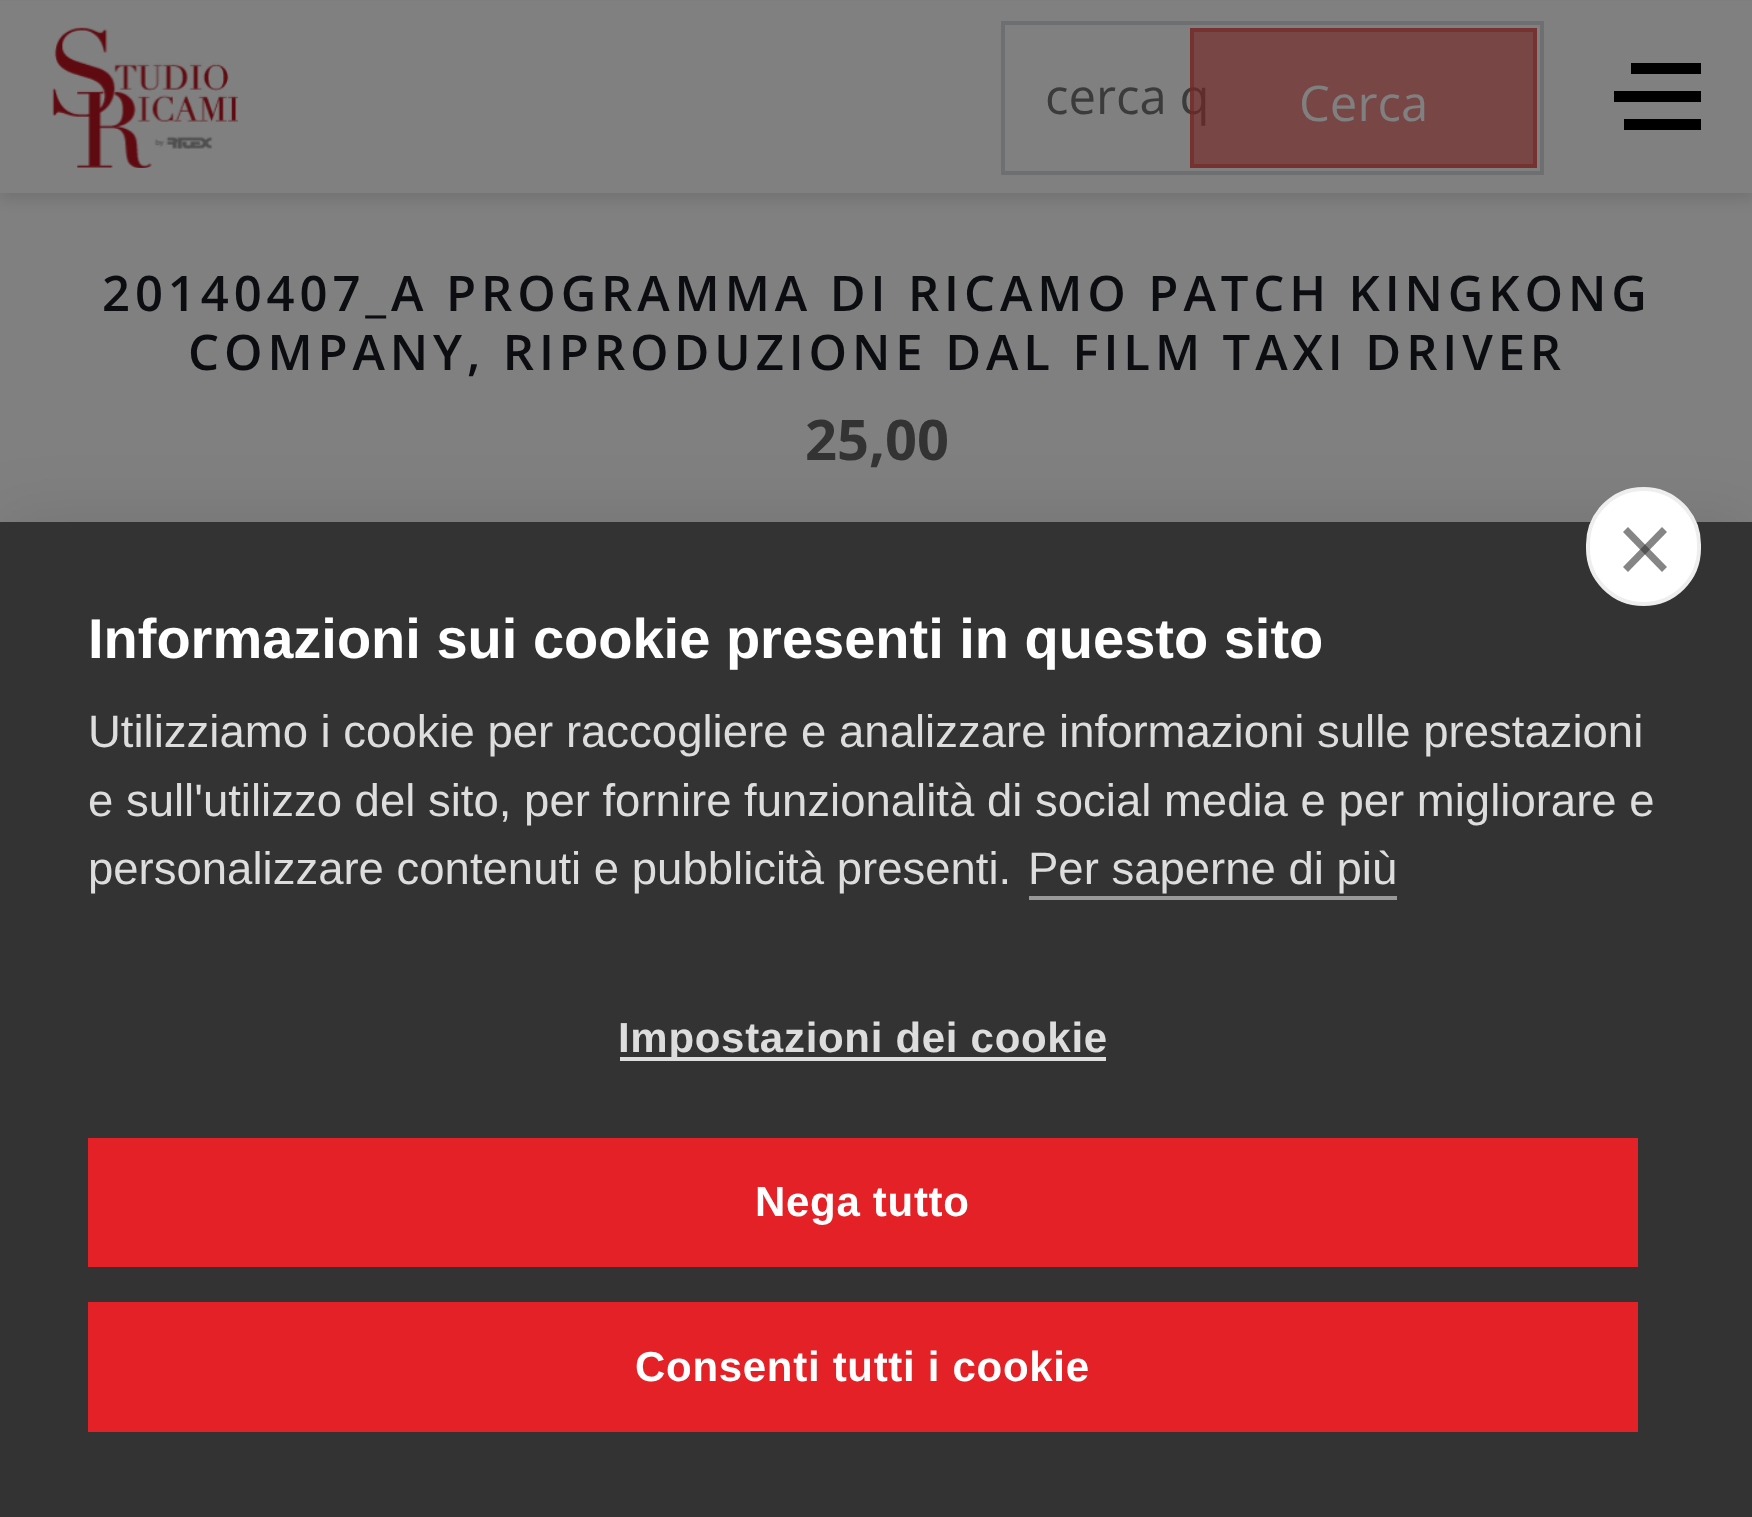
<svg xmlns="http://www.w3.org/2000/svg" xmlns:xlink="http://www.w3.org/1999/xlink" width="1752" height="1517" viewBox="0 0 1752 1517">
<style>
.cls-1{font:49px Open Sans;fill:#3b3b3b}
.cls-2{font:49px Open Sans;fill:#808080}
.cls-3{font:600 49px Open Sans;letter-spacing:4.9px;fill:#0c0d11}
.cls-4{font:bold 56px Open Sans;fill:#333333}
.cls-5{font:bold 56px Liberation Sans;fill:#ffffff}
.cls-6{font:45.5px Liberation Sans;fill:#dddddd}
.cls-7{font:bold 42px Liberation Sans;letter-spacing:0.7px;fill:#dddddd}
.cls-8{font:bold 42px Liberation Sans;letter-spacing:0.7px;fill:#ffffff}
</style>
<rect width="100%" height="100%" fill="#808080"/>
<rect fill="#000000" fill-opacity="0.1" filter="blur(7px)" x="0" y="7" width="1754" height="193"/>
<rect fill="#808080" x="0" y="1" width="1752" height="192"/>
<image xlink:href="image0.png" x="52" y="27" width="186" height="141"/>
<rect fill="none" stroke="#6e6f71" stroke-width="4" x="1003" y="23" width="539" height="150"/>
<rect fill="#000000" x="1631" y="63" width="70" height="11"/>
<rect fill="#000000" x="1614" y="91" width="87" height="11"/>
<rect fill="#000000" x="1624" y="119" width="77" height="11"/>
<rect fill="#000000" fill-opacity="0.1" filter="blur(35px)" x="0" y="522" width="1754" height="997"/>
<rect fill="#333333" x="0" y="522" width="1752" height="995"/>
<rect fill="#ffffff" stroke="#eeeeee" stroke-width="4" x="1588" y="489" width="111" height="115" rx="55.5"/>
<path fill="#858585" d="M1623 567L1662 527L1667 532L1628 572Z"/>
<path fill="#333333" fill-opacity="0.6" d="M1628 527L1667 567L1662 572L1623 532Z"/>
<rect fill="#999999" x="1029" y="896" width="368" height="4"/>
<rect fill="#dddddd" x="620" y="1057" width="486" height="4"/>
<rect fill="#e42127" x="88" y="1138" width="1550" height="129"/>
<rect fill="#e42127" x="88" y="1302" width="1550" height="130"/>
<text class="cls-1" x="1045" y="114">cerca q</text>
<rect fill="#752726" fill-opacity="0.65" x="1190" y="28" width="347" height="140"/>
<rect fill="none" stroke="#752726" stroke-opacity="0.65" stroke-width="4" x="1192" y="30" width="343" height="136"/>
<text class="cls-2" x="1299" y="121">Cerca</text>
<text class="cls-3" x="102" y="311">20140407_A PROGRAMMA DI RICAMO PATCH KINGKONG</text>
<text class="cls-3" x="188" y="370">COMPANY, RIPRODUZIONE DAL FILM TAXI DRIVER</text>
<text class="cls-4" x="805" y="460">25,00</text>
<text class="cls-5" x="88" y="658">Informazioni sui cookie presenti in questo sito</text>
<text class="cls-6"><tspan x="88" y="747">Utilizziamo i cookie per raccogliere e analizzare informazioni sulle prestazioni</tspan><tspan x="88" y="816">e sull'utilizzo del sito, per fornire funzionalità di social media e per migliorare e</tspan><tspan x="88" y="884">personalizzare contenuti e pubblicità presenti.</tspan></text>
<text class="cls-6" x="1028" y="884">Per saperne di più</text>
<text class="cls-7" x="618" y="1052">Impostazioni dei cookie</text>
<text class="cls-8" x="755" y="1216">Nega tutto</text>
<text class="cls-8" x="635" y="1381">Consenti tutti i cookie</text>
</svg>
